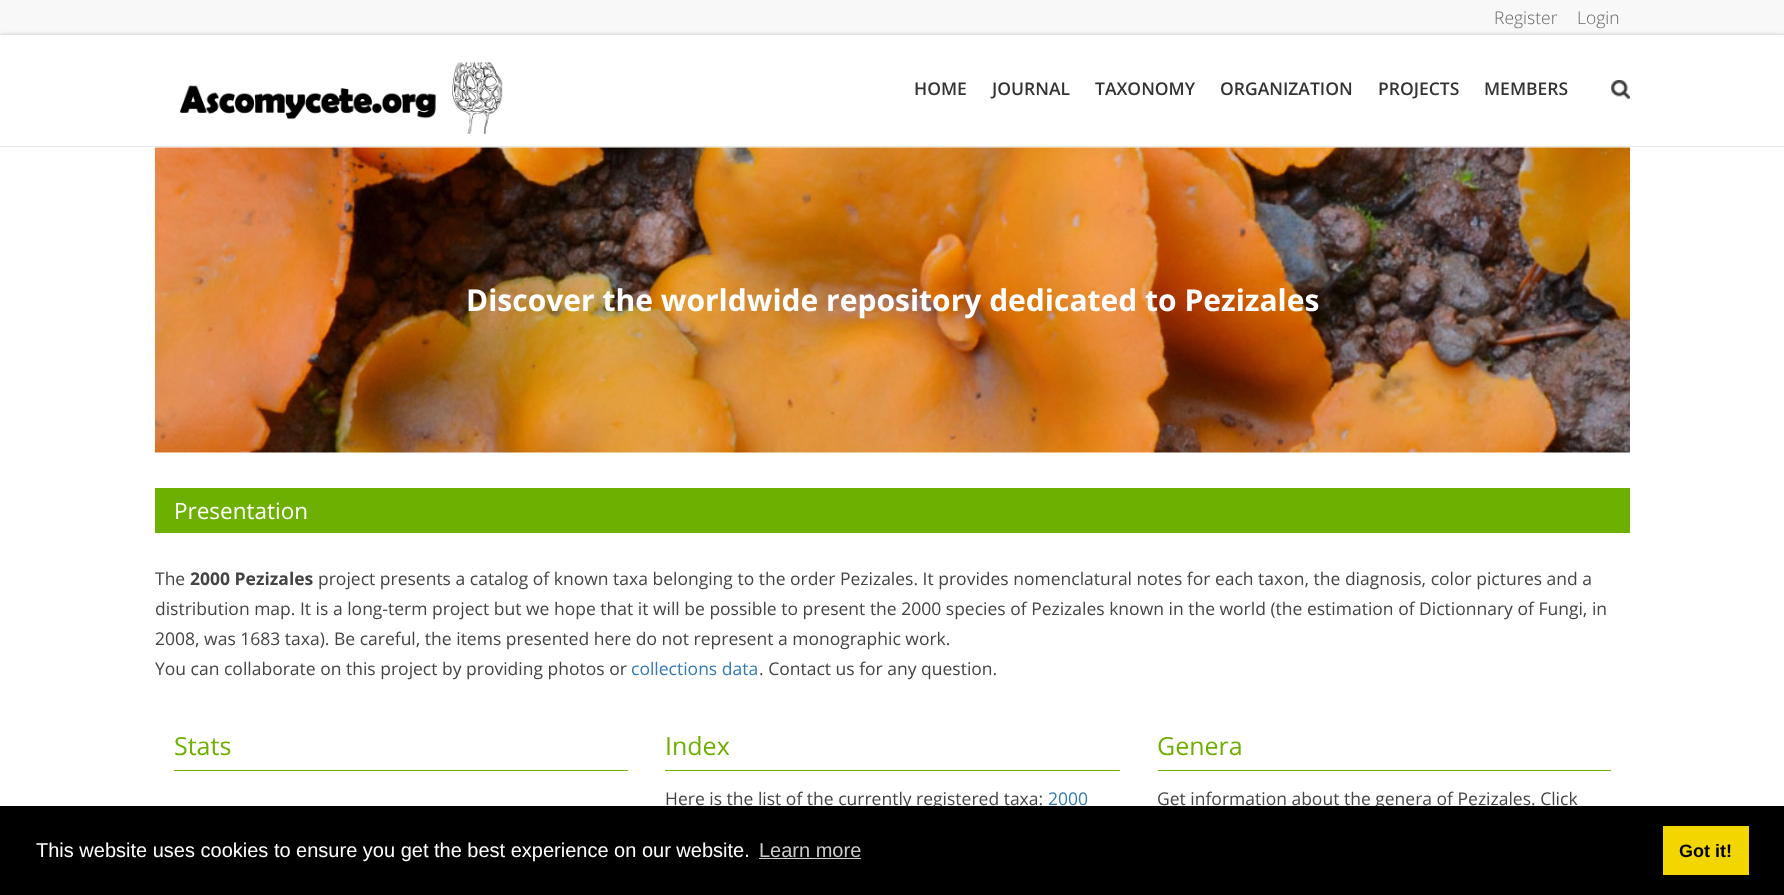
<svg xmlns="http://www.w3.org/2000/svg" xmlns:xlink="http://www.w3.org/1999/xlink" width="1784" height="895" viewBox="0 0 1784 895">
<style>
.cls-1{font:300 17.5px Open Sans;fill:#666666}
.cls-2{font:600 17.5px Open Sans;fill:#333333}
.cls-3{font:bold 30px Open Sans;fill:#ffffff}
.cls-4{font:22.5px Open Sans;fill:#ffffff}
.cls-5{font:17.5px Open Sans;fill:#444444}
.cls-6{font:bold 17.5px Open Sans;fill:#444444}
.cls-7{font:17.5px Open Sans;fill:#337ab7}
.cls-8{font:25px Open Sans;fill:#6db001}
.cls-9{font:20px Liberation Sans;fill:#ffffff}
.cls-10{font:20px Liberation Sans;fill:#cccccc}
.cls-11{font:bold 18px Liberation Sans;fill:#000000}
</style>
<rect width="100%" height="100%" fill="#f8f8f8"/>
<rect fill="#000000" fill-opacity="0.2" filter="blur(2px)" x="0" y="35" width="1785" height="113"/>
<rect fill="#ffffff" x="0" y="35" width="1784" height="771"/>
<rect fill="#e7e7e7" x="0" y="146" width="1784" height="1"/>
<image xlink:href="image0.png" x="180" y="62" width="323" height="72"/>
<image xlink:href="image1.png" x="1611" y="80" width="19" height="19"/>
<image xlink:href="image2.png" x="155" y="147" width="1475" height="306"/>
<rect fill="#6db001" x="155" y="488" width="1475" height="45"/>
<rect fill="#6db001" x="174" y="770" width="454" height="1"/>
<rect fill="#6db001" x="665" y="770" width="455" height="1"/>
<rect fill="#6db001" x="1158" y="770" width="453" height="1"/>
<text class="cls-1" x="1494" y="24">Register</text>
<text class="cls-1" x="1577" y="24">Login</text>
<text class="cls-2" x="914" y="95">HOME</text>
<text class="cls-2" x="992" y="95">JOURNAL</text>
<text class="cls-2" x="1095" y="95">TAXONOMY</text>
<text class="cls-2" x="1220" y="95">ORGANIZATION</text>
<text class="cls-2" x="1378" y="95">PROJECTS</text>
<text class="cls-2" x="1484" y="95">MEMBERS</text>
<text class="cls-3" x="466" y="311">Discover the worldwide repository dedicated to Pezizales</text>
<text class="cls-4" x="174" y="519">Presentation</text>
<text class="cls-5" x="155" y="585">The</text>
<text class="cls-6" x="190" y="585">2000 Pezizales</text>
<text class="cls-5" x="318" y="585">project presents a catalog of known taxa belonging to the order Pezizales. It provides nomenclatural notes for each taxon, the diagnosis, color pictures and a</text>
<text class="cls-5"><tspan x="155" y="615">distribution map. It is a long-term project but we hope that it will be possible to present the 2000 species of Pezizales known in the world (the estimation of Dictionnary of Fungi, in</tspan><tspan x="155" y="645">2008, was 1683 taxa). Be careful, the items presented here do not represent a monographic work.</tspan><tspan x="155" y="675">You can collaborate on this project by providing photos or</tspan></text>
<text class="cls-7" x="631" y="675">collections data</text>
<text class="cls-5" x="759" y="675">. Contact us for any question.</text>
<text class="cls-8" x="174" y="755">Stats</text>
<text class="cls-8" x="665" y="755">Index</text>
<text class="cls-5" x="665" y="805">Here is the list of the currently registered taxa:</text>
<text class="cls-7" x="1048" y="805">2000</text>
<text class="cls-8" x="1157" y="755">Genera</text>
<text class="cls-5" x="1157" y="805">Get information about the genera of Pezizales. Click</text>
<rect fill="#000000" x="0" y="806" width="1784" height="89"/>
<text class="cls-9" x="36" y="857">This website uses cookies to ensure you get the best experience on our website.</text>
<text class="cls-10" x="759" y="857">Learn more</text>
<rect fill="#cccccc" x="759" y="858" width="102" height="1"/>
<rect fill="#f1d600" x="1663" y="826" width="86" height="49"/>
<text class="cls-11" x="1679" y="857">Got it!</text>
</svg>
